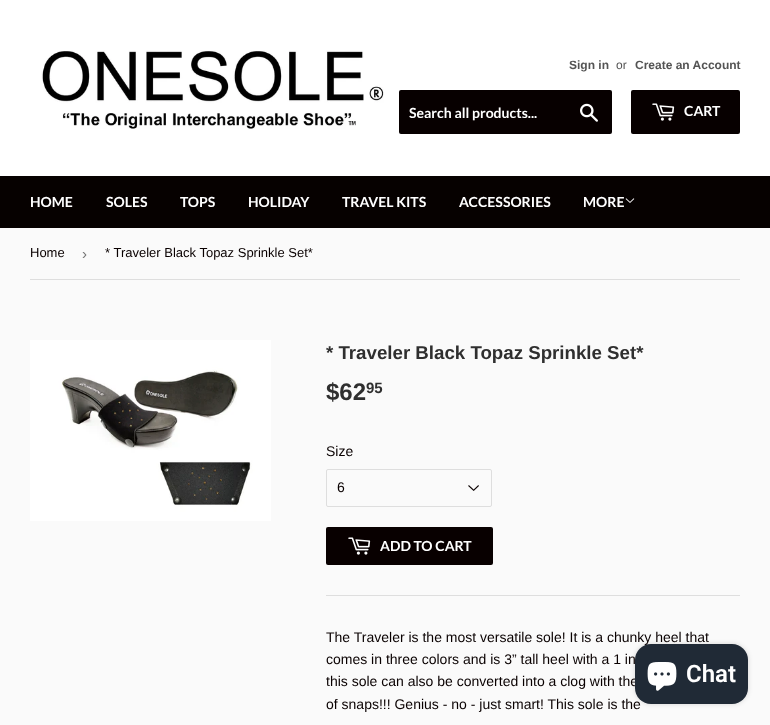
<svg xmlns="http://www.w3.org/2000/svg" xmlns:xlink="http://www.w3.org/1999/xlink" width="770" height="725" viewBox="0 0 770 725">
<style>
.cls-1{font:bold 12px Liberation Sans;fill:#545454}
.cls-2{font:12px Liberation Sans;fill:#545454}
.cls-3{font:bold 14px Lato;fill:#ffffff}
.cls-4{font:13px Liberation Sans;fill:#090000}
.cls-5{font:15px Liberation Sans;fill:#767676}
.cls-6{font:bold 18.7px Liberation Sans;fill:#2f2f2f}
.cls-7{font:bold 24px Liberation Sans;fill:#2f2f2f}
.cls-8{font:bold 15px Liberation Sans;fill:#2f2f2f}
.cls-9{font:14px Liberation Sans;fill:#090000}
.cls-10{font:600 24px Roboto;fill:#ffffff}
</style>
<rect width="100%" height="100%" fill="#fafafa"/>
<rect fill="#ffffff" x="0" y="0" width="770" height="176"/>
<image xlink:href="image0.png" x="41" y="50" width="343" height="79"/>
<rect fill="#070000" x="399" y="90" width="213" height="44" rx="2"/>
<image xlink:href="image1.png" x="580" y="103" width="18" height="19"/>
<rect fill="#070000" x="631" y="90" width="109" height="44" rx="2"/>
<image xlink:href="image2.png" x="652" y="103" width="23" height="18"/>
<rect fill="#060100" x="0" y="176" width="770" height="52"/>
<image xlink:href="image3.png" x="625" y="198" width="10" height="5"/>
<rect fill="#dedede" x="30" y="279" width="710" height="1"/>
<image xlink:href="image4.png" x="30" y="340" width="241" height="181"/>
<image xlink:href="image5.png" x="468" y="485" width="11" height="6"/>
<rect fill="none" stroke="#dedede" x="326.5" y="469.5" width="165" height="37" rx="1.5"/>
<rect fill="#080000" x="326" y="527" width="167" height="38" rx="2"/>
<image xlink:href="image6.png" x="348" y="537" width="23" height="18"/>
<rect fill="#dedede" x="326" y="595" width="414" height="1"/>
<rect fill="#000000" fill-opacity="0.15" filter="blur(2.5px)" x="635" y="644" width="113" height="60" rx="16"/>
<text class="cls-1" x="569" y="69">Sign in</text>
<text class="cls-2" x="616" y="69">or</text>
<text class="cls-1" x="635" y="69">Create an Account</text>
<text class="cls-3" x="409" y="118">Search all products...</text>
<text class="cls-3" x="684" y="116">CART</text>
<text class="cls-3" x="30" y="207">HOME</text>
<text class="cls-3" x="106" y="207">SOLES</text>
<text class="cls-3" x="180" y="207">TOPS</text>
<text class="cls-3" x="248" y="207">HOLIDAY</text>
<text class="cls-3" x="342" y="207">TRAVEL KITS</text>
<text class="cls-3" x="459" y="207">ACCESSORIES</text>
<text class="cls-3" x="583" y="207">MORE</text>
<text class="cls-4" x="30" y="257">Home</text>
<text class="cls-5" x="82" y="259">›</text>
<text class="cls-4" x="105" y="257">* Traveler Black Topaz Sprinkle Set*</text>
<text class="cls-6" x="326" y="359">* Traveler Black Topaz Sprinkle Set*</text>
<text class="cls-7" x="326" y="400">$62</text>
<text class="cls-8" x="366" y="393">95</text>
<text class="cls-9" x="326" y="456">Size</text>
<text class="cls-9" x="337" y="492">6</text>
<text class="cls-3" x="380" y="551">ADD TO CART</text>
<text class="cls-9"><tspan x="326" y="642">The Traveler is the most versatile sole! It is a chunky heel that</tspan><tspan x="326" y="664">comes in three colors and is 3” tall heel with a 1 in</tspan><tspan x="326" y="686">this sole can also be converted into a clog with the</tspan><tspan x="326" y="709">of snaps!!! Genius - no - just smart! This sole is the</tspan></text>
<rect fill="#202a36" x="635" y="644" width="113" height="60" rx="16"/>
<image xlink:href="image7.png" x="647" y="662" width="30" height="29"/>
<text class="cls-10" x="686" y="682">Chat</text>
</svg>
